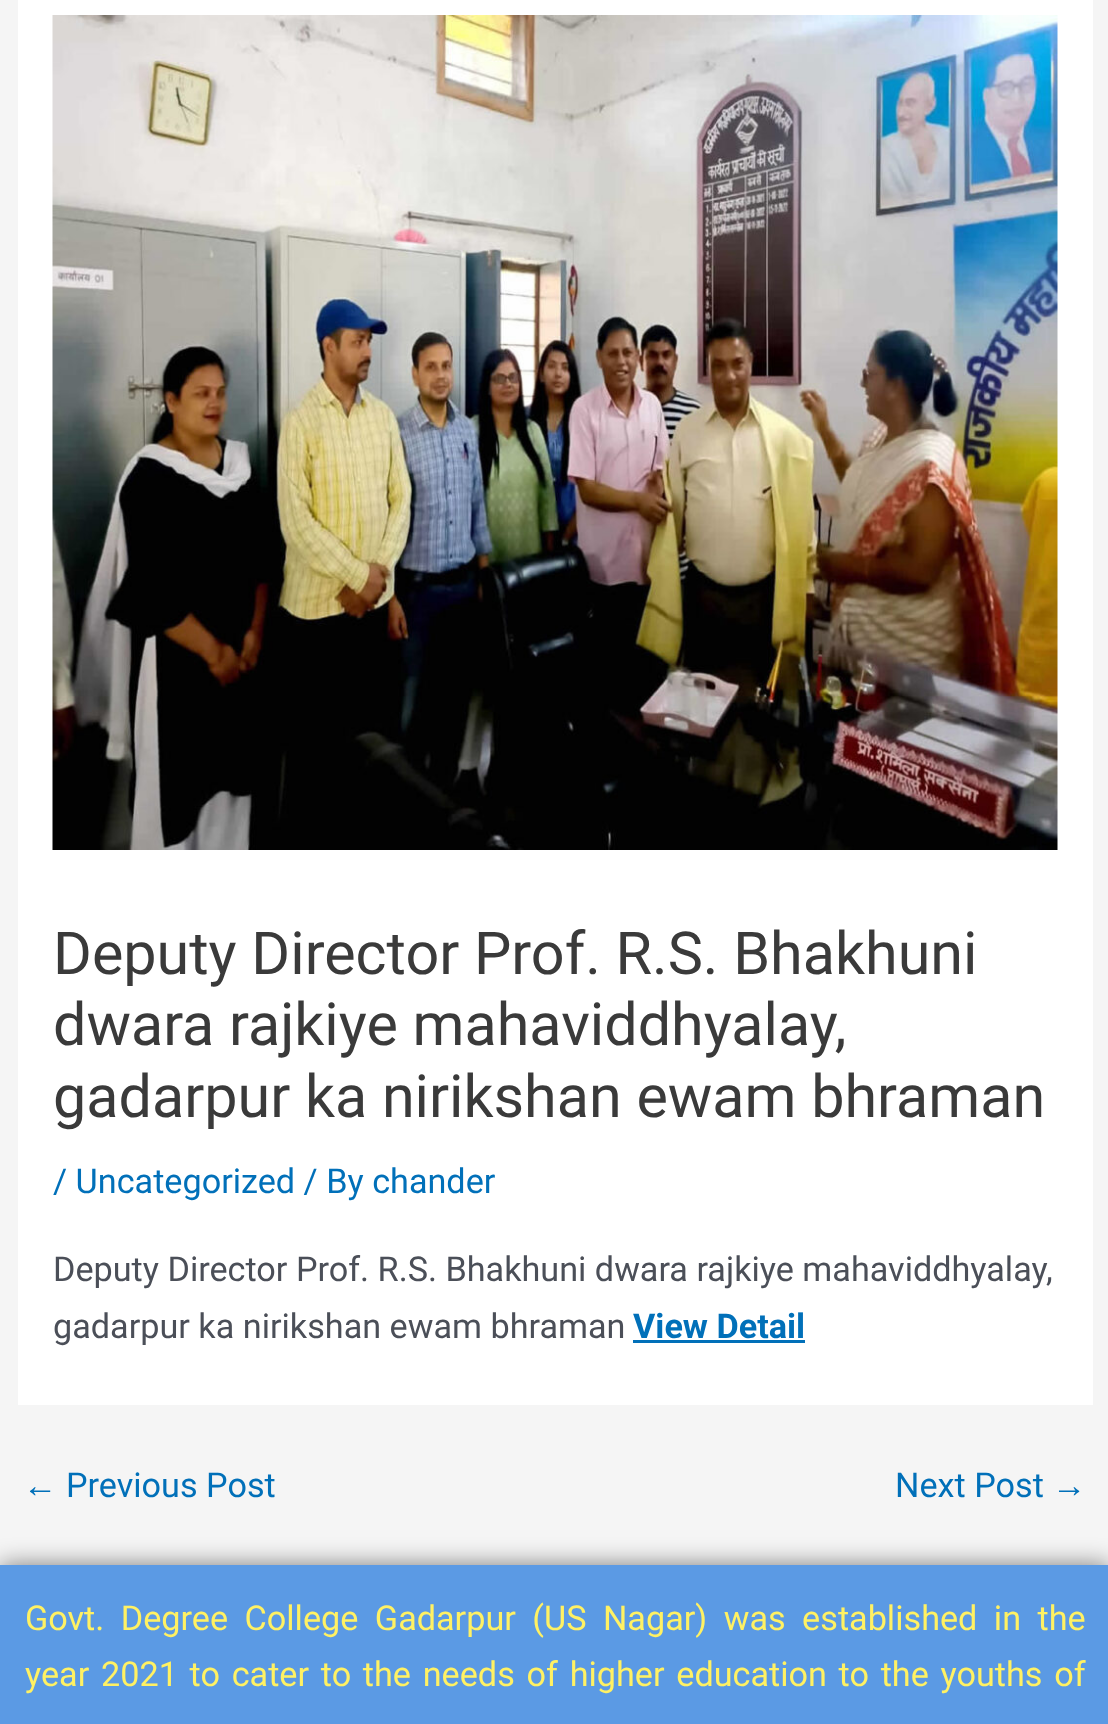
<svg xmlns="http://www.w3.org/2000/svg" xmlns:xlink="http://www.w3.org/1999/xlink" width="1108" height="1724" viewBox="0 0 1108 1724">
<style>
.cls-1{font:59.25px Roboto;fill:#3a3a3a}
.cls-2{font:34.2px Roboto;fill:#0170b9}
.cls-3{font:34.2px Roboto;fill:#4b4f58}
.cls-4{font:bold 34.2px Roboto;fill:#0170b9}
.cls-5{font:34.2px Liberation Sans;fill:#0170b9}
.cls-6{font:34.2px Roboto;fill:#fff163}
</style>
<rect width="100%" height="100%" fill="#f5f5f5"/>
<rect fill="#ffffff" x="18" y="0" width="1075" height="1405"/>
<image xlink:href="image0.png" x="52" y="15" width="1006" height="835"/>
<rect fill="#0170b9" x="633" y="1340" width="172" height="3"/>
<rect fill="#000000" fill-opacity="0.5" filter="blur(12.5px)" x="0" y="1565" width="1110" height="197"/>
<rect fill="#5b9ae4" x="0" y="1565" width="1108" height="159"/>
<text class="cls-1"><tspan x="53" y="974">Deputy Director Prof. R.S. Bhakhuni</tspan><tspan x="53" y="1045">dwara rajkiye mahaviddhyalay,</tspan><tspan x="53" y="1117">gadarpur ka nirikshan ewam bhraman</tspan></text>
<text class="cls-2" x="53" y="1193">/ Uncategorized / By chander</text>
<text class="cls-3"><tspan x="53" y="1281">Deputy Director Prof. R.S. Bhakhuni dwara rajkiye mahaviddhyalay,</tspan><tspan x="53" y="1338">gadarpur ka nirikshan ewam bhraman</tspan></text>
<text class="cls-4" x="633" y="1338">View Detail</text>
<text class="cls-5" x="23" y="1497">←</text>
<text class="cls-2" x="66" y="1497">Previous Post</text>
<text class="cls-2" x="895" y="1497">Next Post</text>
<text class="cls-5" x="1052" y="1497">→</text>
<text class="cls-6"><tspan x="25" y="1630" word-spacing="8">Govt. Degree College Gadarpur (US Nagar) was established in the</tspan><tspan x="25" y="1686" word-spacing="3.25">year 2021 to cater to the needs of higher education to the youths of</tspan></text>
</svg>
